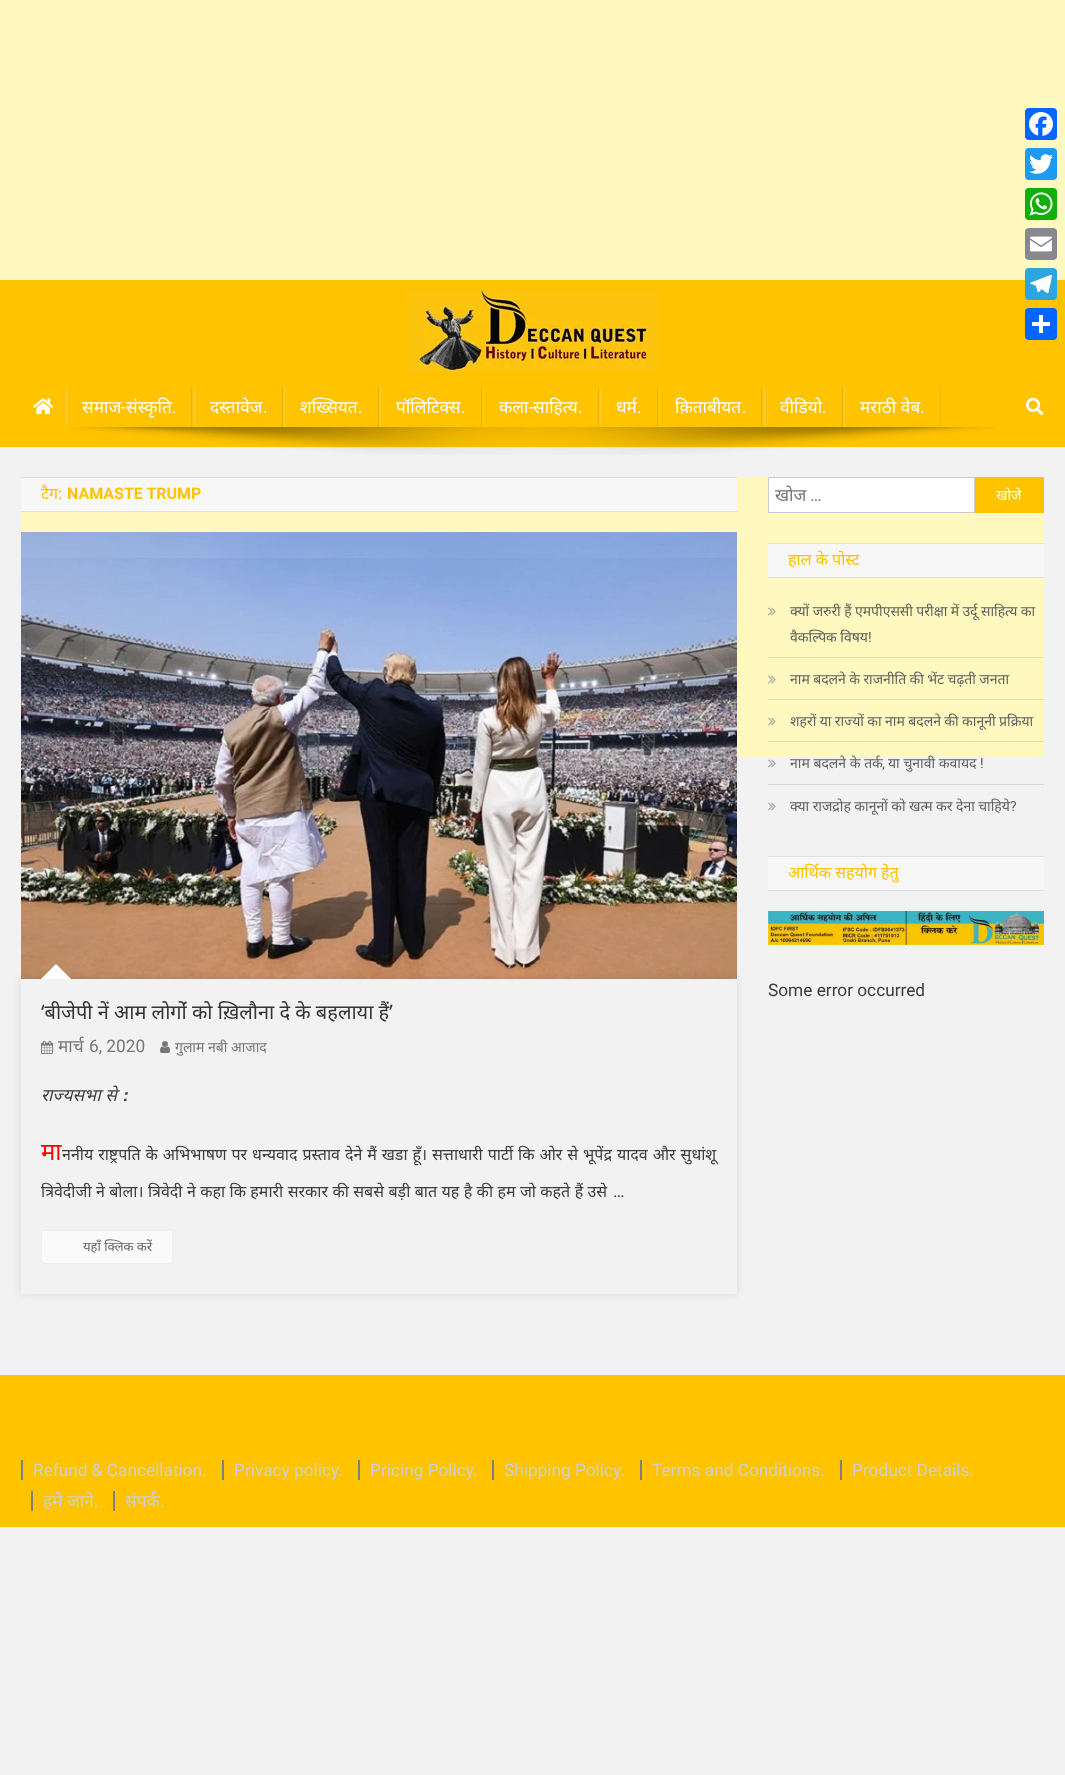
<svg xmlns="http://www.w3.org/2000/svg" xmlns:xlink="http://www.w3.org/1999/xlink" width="1065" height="1775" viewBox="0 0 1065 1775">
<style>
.cls-1{font:17.25px Noto Sans;fill:#ffffff}
.cls-2{font:17.25px Roboto;fill:#ffffff}
.cls-3{font:16px Noto Sans;fill:#ffc300}
.cls-4{font:bold 16px Roboto;fill:#ffc300}
.cls-5{font:20px Noto Sans;fill:#333333}
.cls-6{font:17.25px Noto Sans;fill:#767676}
.cls-7{font:17.25px Roboto;fill:#767676}
.cls-8{font:14px Noto Sans;fill:#767676}
.cls-9{font:italic 17.25px Noto Sans;fill:#3d3d3d}
.cls-10{font:italic bold 17.25px Liberation Sans;fill:#3d3d3d}
.cls-11{font:24px Noto Sans;fill:#ff0000}
.cls-12{font:16px Noto Sans;fill:#3d3d3d}
.cls-13{font:17.25px Roboto;fill:#3d3d3d}
.cls-14{font:13px Noto Sans;fill:#666666}
.cls-15{font:14px Noto Sans;fill:#ffffff}
.cls-16{font:14px Noto Sans;fill:#5f5f5f}
.cls-17{font:14px Roboto;fill:#5f5f5f}
.cls-18{font:17.25px Roboto;fill:#cfcfcf}
.cls-19{font:17.25px Noto Sans;fill:#cfcfcf}
</style>
<defs>
<clipPath id="clip1"><path d="M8 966H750V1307H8ZM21 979H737V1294H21Z" clip-rule="evenodd"/></clipPath>
<clipPath id="clip2"><rect x="775" y="482" width="177" height="24"/></clipPath>
</defs>
<rect width="100%" height="100%" fill="#f2f2f2"/>
<rect fill="#fff9c0" x="0" y="0" width="1065" height="280"/>
<rect fill="#0866ff" x="1025" y="108" width="32" height="32" rx="4"/>
<image xlink:href="image0.png" x="1029" y="112" width="24" height="24"/>
<rect fill="#1d9bf0" x="1025" y="148" width="32" height="32" rx="4"/>
<image xlink:href="image1.png" x="1029" y="154" width="24" height="20"/>
<rect fill="#12af0a" x="1025" y="188" width="32" height="32" rx="4"/>
<image xlink:href="image2.png" x="1029" y="192" width="24" height="24"/>
<rect fill="#888990" x="1025" y="228" width="32" height="32" rx="4"/>
<image xlink:href="image3.png" x="1030" y="236" width="22" height="16"/>
<rect fill="#ffc300" x="0" y="280" width="1065" height="167"/>
<rect fill="#2ca5e0" x="1025" y="268" width="32" height="32" rx="4"/>
<image xlink:href="image4.png" x="1030" y="274" width="22" height="20"/>
<rect fill="#0166ff" x="1025" y="308" width="32" height="32" rx="4"/>
<rect fill="#ffffff" x="1039" y="315" width="4" height="18"/>
<rect fill="#ffffff" x="1032" y="322" width="18" height="4"/>
<image xlink:href="image5.png" x="408" y="290" width="250" height="82"/>
<image xlink:href="image6.png" x="33" y="398" width="21" height="17"/>
<rect fill="#ebb300" x="191" y="387" width="1" height="40"/>
<rect fill="#ffcf33" x="66" y="387" width="1" height="40"/>
<rect fill="#ebb300" x="282" y="387" width="1" height="40"/>
<rect fill="#ffcf33" x="194" y="387" width="1" height="40"/>
<rect fill="#ebb300" x="378" y="387" width="1" height="40"/>
<rect fill="#ffcf33" x="284" y="387" width="1" height="40"/>
<rect fill="#ebb300" x="481" y="387" width="1" height="40"/>
<rect fill="#ffcf33" x="380" y="387" width="1" height="40"/>
<rect fill="#ebb300" x="598" y="387" width="1" height="40"/>
<rect fill="#ffcf33" x="483" y="387" width="1" height="40"/>
<rect fill="#ebb300" x="657" y="387" width="1" height="40"/>
<rect fill="#ffcf33" x="600" y="387" width="1" height="40"/>
<rect fill="#ebb300" x="761" y="387" width="1" height="40"/>
<rect fill="#ffcf33" x="659" y="387" width="1" height="40"/>
<rect fill="#ebb300" x="842" y="387" width="1" height="40"/>
<rect fill="#ffcf33" x="764" y="387" width="1" height="40"/>
<rect fill="#ebb300" x="940" y="387" width="1" height="40"/>
<rect fill="#ffcf33" x="844" y="387" width="1" height="40"/>
<image xlink:href="image7.png" x="1026" y="397" width="18" height="19"/>
<image xlink:href="image8.png" x="70" y="427" width="925" height="28"/>
<rect fill="#fff9c0" x="21" y="477" width="1023" height="280"/>
<rect fill="#f7f7f7" x="21" y="478" width="716" height="33"/>
<rect fill="#e1e1e1" x="21" y="477" width="716" height="1"/>
<rect fill="#e1e1e1" x="21" y="511" width="716" height="1"/>
<image xlink:href="image9.png" x="21" y="532" width="716" height="447"/>
<g clip-path="url(#clip1)">
<rect fill="#000000" fill-opacity="0.1" filter="blur(4px)" x="21" y="979" width="716" height="315"/>
</g>
<path fill="#ffffff" d="M71 979H41L56 964Z"/>
<image xlink:href="image10.png" x="41" y="1040" width="13" height="14"/>
<image xlink:href="image11.png" x="160" y="1041" width="10" height="12"/>
<rect fill="#fafafa" stroke="#eeeeee" x="41.5" y="1230.5" width="131" height="33" rx="2.5"/>
<rect fill="#ffffff" stroke="#cccccc" x="768.5" y="477.5" width="206" height="35"/>
<rect fill="#ffc300" x="975" y="477" width="69" height="36"/>
<rect fill="#f7f7f7" x="768" y="544" width="276" height="33"/>
<rect fill="#e1e1e1" x="768" y="543" width="276" height="1"/>
<rect fill="#e1e1e1" x="768" y="577" width="276" height="1"/>
<rect fill="#e6e0ad" x="768" y="657" width="276" height="1"/>
<image xlink:href="image12.png" x="768" y="607" width="8" height="9"/>
<rect fill="#e6e0ad" x="768" y="699" width="276" height="1"/>
<image xlink:href="image12.png" x="768" y="675" width="8" height="9"/>
<rect fill="#e6e0ad" x="768" y="741" width="276" height="1"/>
<image xlink:href="image12.png" x="768" y="717" width="8" height="9"/>
<rect fill="#dadada" x="768" y="784" width="276" height="1"/>
<image xlink:href="image13.png" x="768" y="759" width="8" height="9"/>
<image xlink:href="image13.png" x="768" y="802" width="8" height="9"/>
<rect fill="#f7f7f7" x="768" y="857" width="276" height="33"/>
<rect fill="#e1e1e1" x="768" y="856" width="276" height="1"/>
<rect fill="#e1e1e1" x="768" y="890" width="276" height="1"/>
<image xlink:href="image14.png" x="768" y="911" width="276" height="34"/>
<rect fill="#ffc300" x="0" y="1375" width="1065" height="152"/>
<rect fill="#7f7f7f" x="21" y="1460" width="2" height="20"/>
<rect fill="#7f7f7f" x="222" y="1460" width="2" height="20"/>
<rect fill="#7f7f7f" x="358" y="1460" width="2" height="20"/>
<rect fill="#7f7f7f" x="492" y="1460" width="2" height="20"/>
<rect fill="#7f7f7f" x="640" y="1460" width="2" height="20"/>
<rect fill="#7f7f7f" x="840" y="1460" width="2" height="20"/>
<rect fill="#7f7f7f" x="31" y="1491" width="2" height="20"/>
<rect fill="#7f7f7f" x="113" y="1491" width="2" height="20"/>
<text class="cls-1" x="82" y="413">समाज</text>
<text class="cls-2" x="121" y="413">-</text>
<text class="cls-1" x="126" y="413">संस्कृति</text>
<text class="cls-2" x="172" y="413">.</text>
<text class="cls-1" x="210" y="413">दस्तावेज</text>
<text class="cls-2" x="263" y="413">.</text>
<text class="cls-1" x="300" y="413">शख्सियत</text>
<text class="cls-2" x="358" y="413">.</text>
<text class="cls-1" x="396" y="413">पॉलिटिक्स</text>
<text class="cls-2" x="461" y="413">.</text>
<text class="cls-1" x="499" y="413">कला</text>
<text class="cls-2" x="529" y="413">-</text>
<text class="cls-1" x="533" y="413">साहित्य</text>
<text class="cls-2" x="578" y="413">.</text>
<text class="cls-1" x="616" y="413">धर्म</text>
<text class="cls-2" x="637" y="413">.</text>
<text class="cls-1" x="675" y="413">क़िताबीयत</text>
<text class="cls-2" x="742" y="413">.</text>
<text class="cls-1" x="780" y="413">वीडियो</text>
<text class="cls-2" x="822" y="413">.</text>
<text class="cls-1" x="860" y="413">मराठी वेब</text>
<text class="cls-2" x="920" y="413">.</text>
<text class="cls-3" x="41" y="499">टैग:</text>
<text class="cls-4" x="67" y="499">NAMASTE TRUMP</text>
<text class="cls-5" x="41" y="1019">‘बीजेपी नें आम लोगोंं को ख़िलौना दे के बहलाया हैं’</text>
<text class="cls-6" x="58" y="1052">मार्च</text>
<text class="cls-7" x="89" y="1052">6, 2020</text>
<text class="cls-8" x="175" y="1052">गुलाम नबी आजाद</text>
<text class="cls-9" x="41" y="1101">राज्यसभा से</text>
<text class="cls-10" x="123" y="1101">:</text>
<text class="cls-11" x="41" y="1160">मा</text>
<text class="cls-12" x="62" y="1160" word-spacing="0.8">ननीय राष्ट्रपति के अभिभाषण पर धन्यवाद प्रस्ताव देने मैं खडा हूँ। सत्ताधारी पार्टी कि ओर से भूपेंद्र यादव और सुधांशू</text>
<text class="cls-12" x="41" y="1197" word-spacing="0.25">त्रिवेदीजी ने बोला। त्रिवेदी ने कहा कि हमारी सरकार की सबसे बड़ी बात यह है की हम जो कहते हैं उसे</text>
<text class="cls-13" x="613" y="1197">…</text>
<text class="cls-14" x="83" y="1251">यहाँ क्लिक करें</text>
<g clip-path="url(#clip2)">
<text class="cls-6" x="775" y="501">खोज</text>
</g>
<text class="cls-7" x="810" y="501">…</text>
<text class="cls-15" x="996" y="500">खोजे</text>
<text class="cls-3" x="788" y="565">हाल के पोस्ट</text>
<text class="cls-16"><tspan x="790" y="616" word-spacing="-0.25">क्यों जरुरी हैं एमपीएससी परीक्षा में उर्दू साहित्य का</tspan><tspan x="790" y="642" word-spacing="-0.25">वैकल्पिक विषय</tspan></text>
<text class="cls-17" x="868" y="642">!</text>
<text class="cls-16" x="790" y="684" word-spacing="-0.25">नाम बदलने के राजनीति की भेंट चढ़ती जनता</text>
<text class="cls-16" x="790" y="726" word-spacing="-0.25">शहरों या राज्यों का नाम बदलने की कानूनी प्रक्रिया</text>
<text class="cls-16" x="790" y="768">नाम बदलने के तर्क</text>
<text class="cls-17" x="882" y="768">,</text>
<text class="cls-16" x="888" y="768">या चुनावी कवायद</text>
<text class="cls-17" x="980" y="768">!</text>
<text class="cls-16" x="790" y="811" word-spacing="-0.25">क्या राजद्रोह कानूनों को खत्म कर देना चाहिये</text>
<text class="cls-17" x="1010" y="811">?</text>
<text class="cls-3" x="788" y="878">आर्थिक सहयोग हेतु</text>
<text class="cls-13" x="768" y="996">Some error occurred</text>
<text class="cls-18" x="33" y="1476">Refund &amp; Cancellation.</text>
<text class="cls-18" x="234" y="1476">Privacy policy.</text>
<text class="cls-18" x="370" y="1476">Pricing Policy.</text>
<text class="cls-18" x="504" y="1476">Shipping Policy.</text>
<text class="cls-18" x="652" y="1476">Terms and Conditions.</text>
<text class="cls-18" x="852" y="1476">Product Details.</text>
<text class="cls-19" x="43" y="1507">हमे जाने</text>
<text class="cls-18" x="94" y="1507">.</text>
<text class="cls-19" x="125" y="1507">संपर्क</text>
<text class="cls-18" x="160" y="1507">.</text>
</svg>
